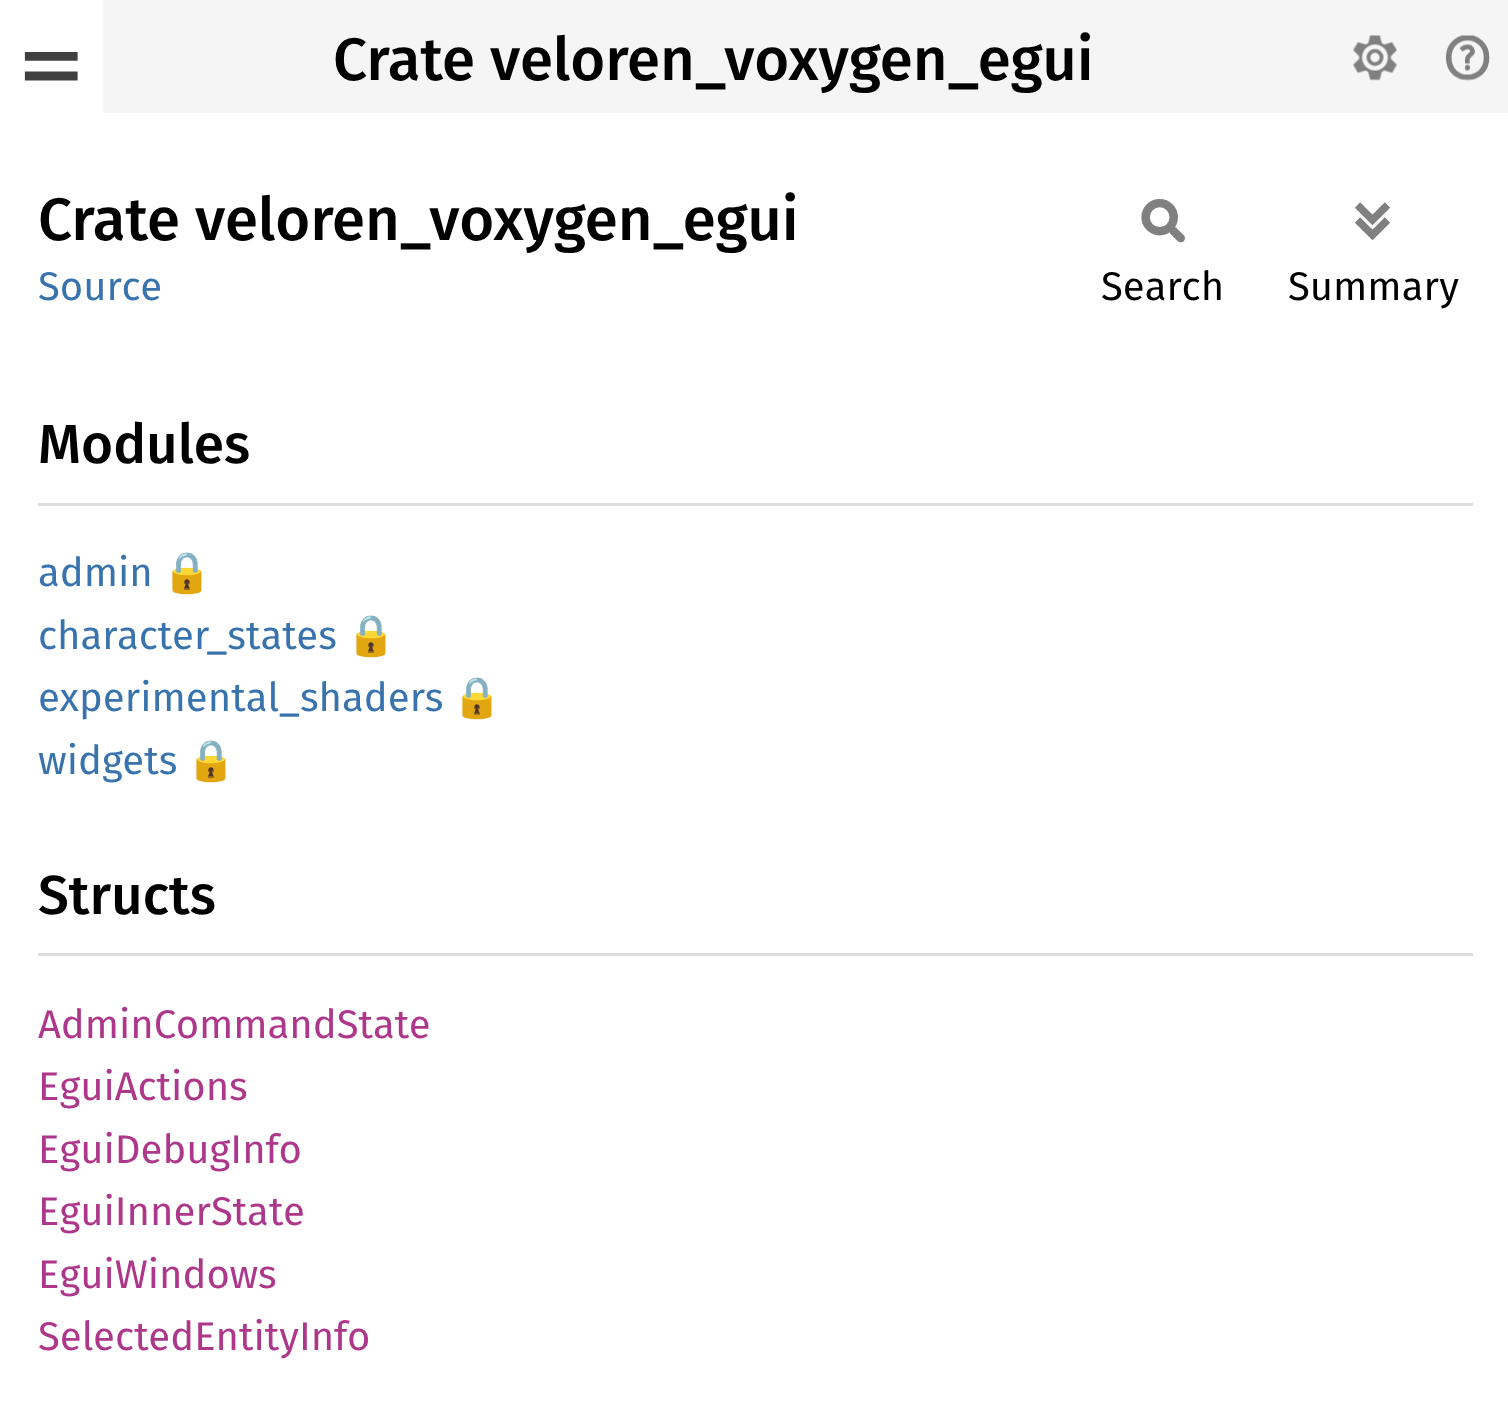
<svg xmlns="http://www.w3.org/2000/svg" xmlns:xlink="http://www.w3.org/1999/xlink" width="1508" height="1422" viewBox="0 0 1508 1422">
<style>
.cls-1{font:500 60px Fira Sans;fill:#000000}
.cls-2{font:40px Fira Sans;fill:#3873ad}
.cls-3{font:40px Fira Sans;fill:#000000}
.cls-4{font:500 55px Fira Sans;fill:#000000}
.cls-5{font:40px Noto Color Emoji;fill:#000000}
.cls-6{font:40px Fira Sans;fill:#ad378a}
</style>
<rect width="100%" height="100%" fill="#ffffff"/>
<rect fill="#f5f5f5" x="103" y="0" width="1405" height="113"/>
<image xlink:href="image0.png" x="24" y="52" width="54" height="29"/>
<image xlink:href="image1.png" x="1353" y="35" width="44" height="46"/>
<image xlink:href="image2.png" x="1445" y="35" width="45" height="46"/>
<image xlink:href="image3.png" x="1141" y="199" width="44" height="44"/>
<image xlink:href="image4.png" x="1355" y="202" width="35" height="39"/>
<rect fill="#dddddd" x="38" y="503" width="1435" height="3"/>
<rect fill="#dddddd" x="38" y="953" width="1435" height="3"/>
<text class="cls-1" x="333" y="80">Crate veloren_voxygen_egui</text>
<text class="cls-1" x="38" y="240">Crate veloren_voxygen_egui</text>
<text class="cls-2" x="38" y="300">Source</text>
<text class="cls-3" x="1101" y="300">Search</text>
<text class="cls-3" x="1288" y="300">Summary</text>
<text class="cls-4" x="38" y="463">Modules</text>
<text class="cls-2" x="38" y="586">admin</text>
<text class="cls-5" x="162" y="586">🔒</text>
<text class="cls-2" x="38" y="649">character_states</text>
<text class="cls-5" x="346" y="649">🔒</text>
<text class="cls-2" x="38" y="711">experimental_shaders</text>
<text class="cls-5" x="452" y="711">🔒</text>
<text class="cls-2" x="38" y="774">widgets</text>
<text class="cls-5" x="186" y="774">🔒</text>
<text class="cls-4" x="38" y="914">Structs</text>
<text class="cls-6"><tspan x="38" y="1038">AdminCommandState</tspan><tspan x="38" y="1100">EguiActions</tspan><tspan x="38" y="1163">EguiDebugInfo</tspan><tspan x="38" y="1225">EguiInnerState</tspan><tspan x="38" y="1288">EguiWindows</tspan><tspan x="38" y="1350">SelectedEntityInfo</tspan></text>
</svg>
